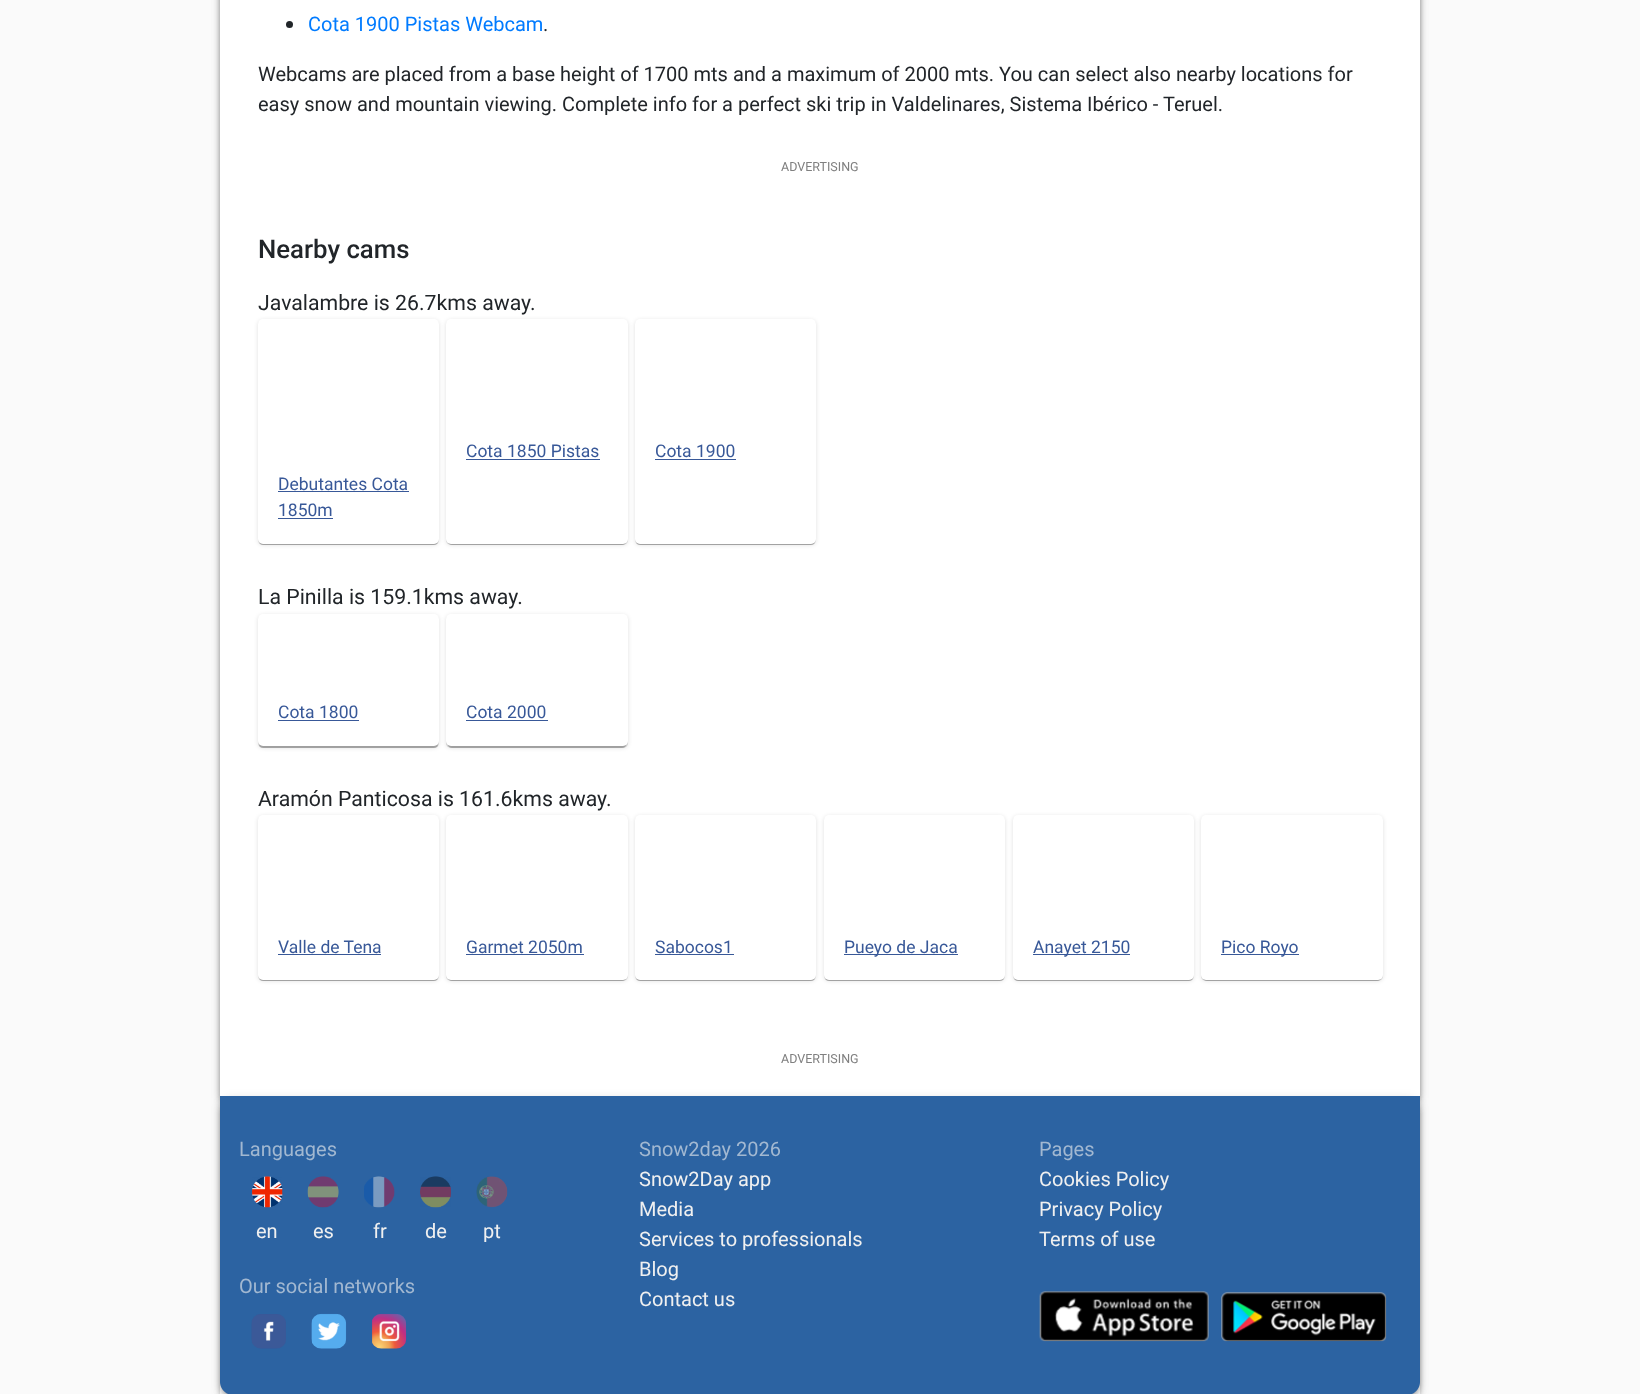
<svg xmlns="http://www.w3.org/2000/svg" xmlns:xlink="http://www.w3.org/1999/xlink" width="1640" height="1394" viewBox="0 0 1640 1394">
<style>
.cls-1{font:20px Roboto;fill:#007bff}
.cls-2{font:20px Roboto;fill:#212529}
.cls-3{font:12.5px Roboto;fill:#808080}
.cls-4{font:500 25.75px Roboto;fill:#212529}
.cls-5{font:21.25px Roboto;fill:#212529}
.cls-6{font:17.5px Roboto;fill:#385898}
.cls-7{font:20px Roboto;fill:#a2b8d1}
.cls-8{font:20px Roboto;fill:#f0f0f0}
</style>
<defs>
<clipPath id="clip1"><path d="M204 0H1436V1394H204ZM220-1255H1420V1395H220Z" clip-rule="evenodd"/></clipPath>
<clipPath id="clip2"><path d="M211 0H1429V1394H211ZM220-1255H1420V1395H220Z" clip-rule="evenodd"/></clipPath>
</defs>
<rect width="100%" height="100%" fill="#fafafa"/>
<g clip-path="url(#clip1)">
<rect fill="#000000" fill-opacity="0.12" filter="blur(5px)" x="220" y="-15" width="1200" height="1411"/>
</g>
<g clip-path="url(#clip2)">
<rect fill="#000000" fill-opacity="0.14" filter="blur(2.5px)" x="220" y="-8" width="1200" height="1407"/>
</g>
<rect fill="#000000" fill-opacity="0.12" filter="blur(5px)" x="220" y="-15" width="1200" height="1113"/>
<rect fill="#000000" fill-opacity="0.14" filter="blur(2.5px)" x="220" y="-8" width="1200" height="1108"/>
<rect fill="#000000" fill-opacity="0.2" filter="blur(2px)" x="223" y="-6" width="1195" height="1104"/>
<rect fill="#ffffff" x="220" y="0" width="1200" height="1096"/>
<circle fill="#212529" cx="289.5" cy="24.5" r="3.5"/>
<rect fill="#000000" fill-opacity="0.12" filter="blur(2px)" x="446" y="320" width="182" height="225" rx="5"/>
<rect fill="#000000" fill-opacity="0.14" filter="blur(0.5px)" x="446" y="320" width="182" height="225" rx="5"/>
<rect fill="#000000" fill-opacity="0.2" filter="blur(0.5px)" x="448" y="323" width="178" height="222" rx="4"/>
<rect fill="#ffffff" x="446" y="319" width="182" height="225" rx="5"/>
<rect fill="#385898" x="466" y="459" width="134" height="1"/>
<rect fill="#000000" fill-opacity="0.12" filter="blur(2px)" x="635" y="320" width="181" height="225" rx="5"/>
<rect fill="#000000" fill-opacity="0.14" filter="blur(0.5px)" x="635" y="320" width="181" height="225" rx="5"/>
<rect fill="#000000" fill-opacity="0.2" filter="blur(0.5px)" x="636" y="323" width="179" height="222" rx="4"/>
<rect fill="#ffffff" x="635" y="319" width="181" height="225" rx="5"/>
<rect fill="#385898" x="655" y="459" width="81" height="1"/>
<rect fill="#000000" fill-opacity="0.12" filter="blur(2px)" x="258" y="320" width="181" height="225" rx="5"/>
<rect fill="#000000" fill-opacity="0.14" filter="blur(0.5px)" x="258" y="320" width="181" height="225" rx="5"/>
<rect fill="#000000" fill-opacity="0.2" filter="blur(0.5px)" x="259" y="323" width="179" height="222" rx="4"/>
<rect fill="#ffffff" x="258" y="319" width="181" height="225" rx="5"/>
<rect fill="#385898" x="278" y="491" width="131" height="1"/>
<rect fill="#385898" x="278" y="518" width="55" height="1"/>
<rect fill="#000000" fill-opacity="0.12" filter="blur(2px)" x="258" y="615" width="181" height="133" rx="5"/>
<rect fill="#000000" fill-opacity="0.14" filter="blur(0.5px)" x="258" y="615" width="181" height="133" rx="5"/>
<rect fill="#000000" fill-opacity="0.2" filter="blur(0.5px)" x="259" y="618" width="179" height="130" rx="4"/>
<rect fill="#ffffff" x="258" y="614" width="181" height="132" rx="5"/>
<rect fill="#385898" x="278" y="720" width="81" height="1"/>
<rect fill="#000000" fill-opacity="0.12" filter="blur(2px)" x="446" y="615" width="182" height="133" rx="5"/>
<rect fill="#000000" fill-opacity="0.14" filter="blur(0.5px)" x="446" y="615" width="182" height="133" rx="5"/>
<rect fill="#000000" fill-opacity="0.2" filter="blur(0.5px)" x="448" y="618" width="178" height="130" rx="4"/>
<rect fill="#ffffff" x="446" y="614" width="182" height="132" rx="5"/>
<rect fill="#385898" x="466" y="720" width="82" height="1"/>
<rect fill="#000000" fill-opacity="0.12" filter="blur(2px)" x="258" y="816" width="181" height="165" rx="5"/>
<rect fill="#000000" fill-opacity="0.14" filter="blur(0.5px)" x="258" y="816" width="181" height="165" rx="5"/>
<rect fill="#000000" fill-opacity="0.2" filter="blur(0.5px)" x="259" y="819" width="179" height="162" rx="4"/>
<rect fill="#ffffff" x="258" y="815" width="181" height="165" rx="5"/>
<rect fill="#385898" x="278" y="954" width="103" height="1"/>
<rect fill="#000000" fill-opacity="0.12" filter="blur(2px)" x="446" y="816" width="182" height="165" rx="5"/>
<rect fill="#000000" fill-opacity="0.14" filter="blur(0.5px)" x="446" y="816" width="182" height="165" rx="5"/>
<rect fill="#000000" fill-opacity="0.2" filter="blur(0.5px)" x="448" y="819" width="178" height="162" rx="4"/>
<rect fill="#ffffff" x="446" y="815" width="182" height="165" rx="5"/>
<rect fill="#385898" x="466" y="954" width="118" height="1"/>
<rect fill="#000000" fill-opacity="0.12" filter="blur(2px)" x="635" y="816" width="181" height="165" rx="5"/>
<rect fill="#000000" fill-opacity="0.14" filter="blur(0.5px)" x="635" y="816" width="181" height="165" rx="5"/>
<rect fill="#000000" fill-opacity="0.2" filter="blur(0.5px)" x="636" y="819" width="179" height="162" rx="4"/>
<rect fill="#ffffff" x="635" y="815" width="181" height="165" rx="5"/>
<rect fill="#385898" x="655" y="954" width="79" height="1"/>
<rect fill="#000000" fill-opacity="0.12" filter="blur(2px)" x="824" y="816" width="181" height="165" rx="5"/>
<rect fill="#000000" fill-opacity="0.14" filter="blur(0.5px)" x="824" y="816" width="181" height="165" rx="5"/>
<rect fill="#000000" fill-opacity="0.2" filter="blur(0.5px)" x="825" y="819" width="179" height="162" rx="4"/>
<rect fill="#ffffff" x="824" y="815" width="181" height="165" rx="5"/>
<rect fill="#385898" x="844" y="954" width="114" height="1"/>
<rect fill="#000000" fill-opacity="0.12" filter="blur(2px)" x="1013" y="816" width="181" height="165" rx="5"/>
<rect fill="#000000" fill-opacity="0.14" filter="blur(0.5px)" x="1013" y="816" width="181" height="165" rx="5"/>
<rect fill="#000000" fill-opacity="0.2" filter="blur(0.5px)" x="1014" y="819" width="179" height="162" rx="4"/>
<rect fill="#ffffff" x="1013" y="815" width="181" height="165" rx="5"/>
<rect fill="#385898" x="1033" y="954" width="97" height="1"/>
<rect fill="#000000" fill-opacity="0.12" filter="blur(2px)" x="1201" y="816" width="182" height="165" rx="5"/>
<rect fill="#000000" fill-opacity="0.14" filter="blur(0.5px)" x="1201" y="816" width="182" height="165" rx="5"/>
<rect fill="#000000" fill-opacity="0.2" filter="blur(0.5px)" x="1203" y="819" width="178" height="162" rx="4"/>
<rect fill="#ffffff" x="1201" y="815" width="182" height="165" rx="5"/>
<rect fill="#385898" x="1221" y="954" width="78" height="1"/>
<rect fill="#000000" fill-opacity="0.12" filter="blur(5px)" x="220" y="1098" width="1200" height="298" rx="13"/>
<rect fill="#000000" fill-opacity="0.14" filter="blur(2.5px)" x="220" y="1100" width="1200" height="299" rx="13"/>
<rect fill="#000000" fill-opacity="0.2" filter="blur(2px)" x="223" y="1103" width="1195" height="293" rx="10"/>
<path fill="#2c63a2" d="M220 1096H1420V1382C1420 1389 1414 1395 1407 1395H233C226 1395 220 1389 220 1382Z"/>
<image xlink:href="image0.png" x="252" y="1176" width="31" height="32"/>
<image xlink:href="image1.png" x="307" y="1176" width="32" height="32"/>
<image xlink:href="image2.png" x="364" y="1176" width="31" height="32"/>
<image xlink:href="image3.png" x="420" y="1176" width="31" height="32"/>
<image xlink:href="image4.png" x="476" y="1176" width="32" height="32"/>
<image xlink:href="image5.png" x="251" y="1314" width="35" height="35"/>
<image xlink:href="image6.png" x="311" y="1313" width="36" height="36"/>
<image xlink:href="image7.png" x="372" y="1313" width="35" height="36"/>
<image xlink:href="image8.png" x="1039" y="1291" width="170" height="51"/>
<image xlink:href="image9.png" x="1221" y="1292" width="166" height="50"/>
<text class="cls-1" x="308" y="31">Cota 1900 Pistas Webcam</text>
<text class="cls-2" x="543" y="31">.</text>
<text class="cls-2"><tspan x="258" y="81">Webcams are placed from a base height of 1700 mts and a maximum of 2000 mts. You can select also nearby locations for</tspan><tspan x="258" y="111">easy snow and mountain viewing. Complete info for a perfect ski trip in Valdelinares, Sistema Ibérico - Teruel.</tspan></text>
<text class="cls-3" x="781" y="171">ADVERTISING</text>
<text class="cls-4" x="258" y="258">Nearby cams</text>
<text class="cls-5" x="258" y="310">Javalambre is 26.7kms away.</text>
<text class="cls-6" x="466" y="457">Cota 1850 Pistas</text>
<text class="cls-6" x="655" y="457">Cota 1900</text>
<text class="cls-6"><tspan x="278" y="490">Debutantes Cota</tspan><tspan x="278" y="516">1850m</tspan></text>
<text class="cls-5" x="258" y="604">La Pinilla is 159.1kms away.</text>
<text class="cls-6" x="278" y="718">Cota 1800</text>
<text class="cls-6" x="466" y="718">Cota 2000</text>
<text class="cls-5" x="258" y="806">Aramón Panticosa is 161.6kms away.</text>
<text class="cls-6" x="278" y="953">Valle de Tena</text>
<text class="cls-6" x="466" y="953">Garmet 2050m</text>
<text class="cls-6" x="655" y="953">Sabocos1</text>
<text class="cls-6" x="844" y="953">Pueyo de Jaca</text>
<text class="cls-6" x="1033" y="953">Anayet 2150</text>
<text class="cls-6" x="1221" y="953">Pico Royo</text>
<text class="cls-3" x="781" y="1063">ADVERTISING</text>
<text class="cls-7" x="239" y="1156">Languages</text>
<text class="cls-8" x="256" y="1238">en</text>
<text class="cls-8" x="313" y="1238">es</text>
<text class="cls-8" x="373" y="1238">fr</text>
<text class="cls-8" x="425" y="1238">de</text>
<text class="cls-8" x="483" y="1238">pt</text>
<text class="cls-7" x="239" y="1293">Our social networks</text>
<text class="cls-7" x="639" y="1156">Snow2day 2026</text>
<text class="cls-8"><tspan x="639" y="1186">Snow2Day app</tspan><tspan x="639" y="1216">Media</tspan><tspan x="639" y="1246">Services to professionals</tspan><tspan x="639" y="1276">Blog</tspan><tspan x="639" y="1306">Contact us</tspan></text>
<text class="cls-7" x="1039" y="1156">Pages</text>
<text class="cls-8"><tspan x="1039" y="1186">Cookies Policy</tspan><tspan x="1039" y="1216">Privacy Policy</tspan><tspan x="1039" y="1246">Terms of use</tspan></text>
</svg>
